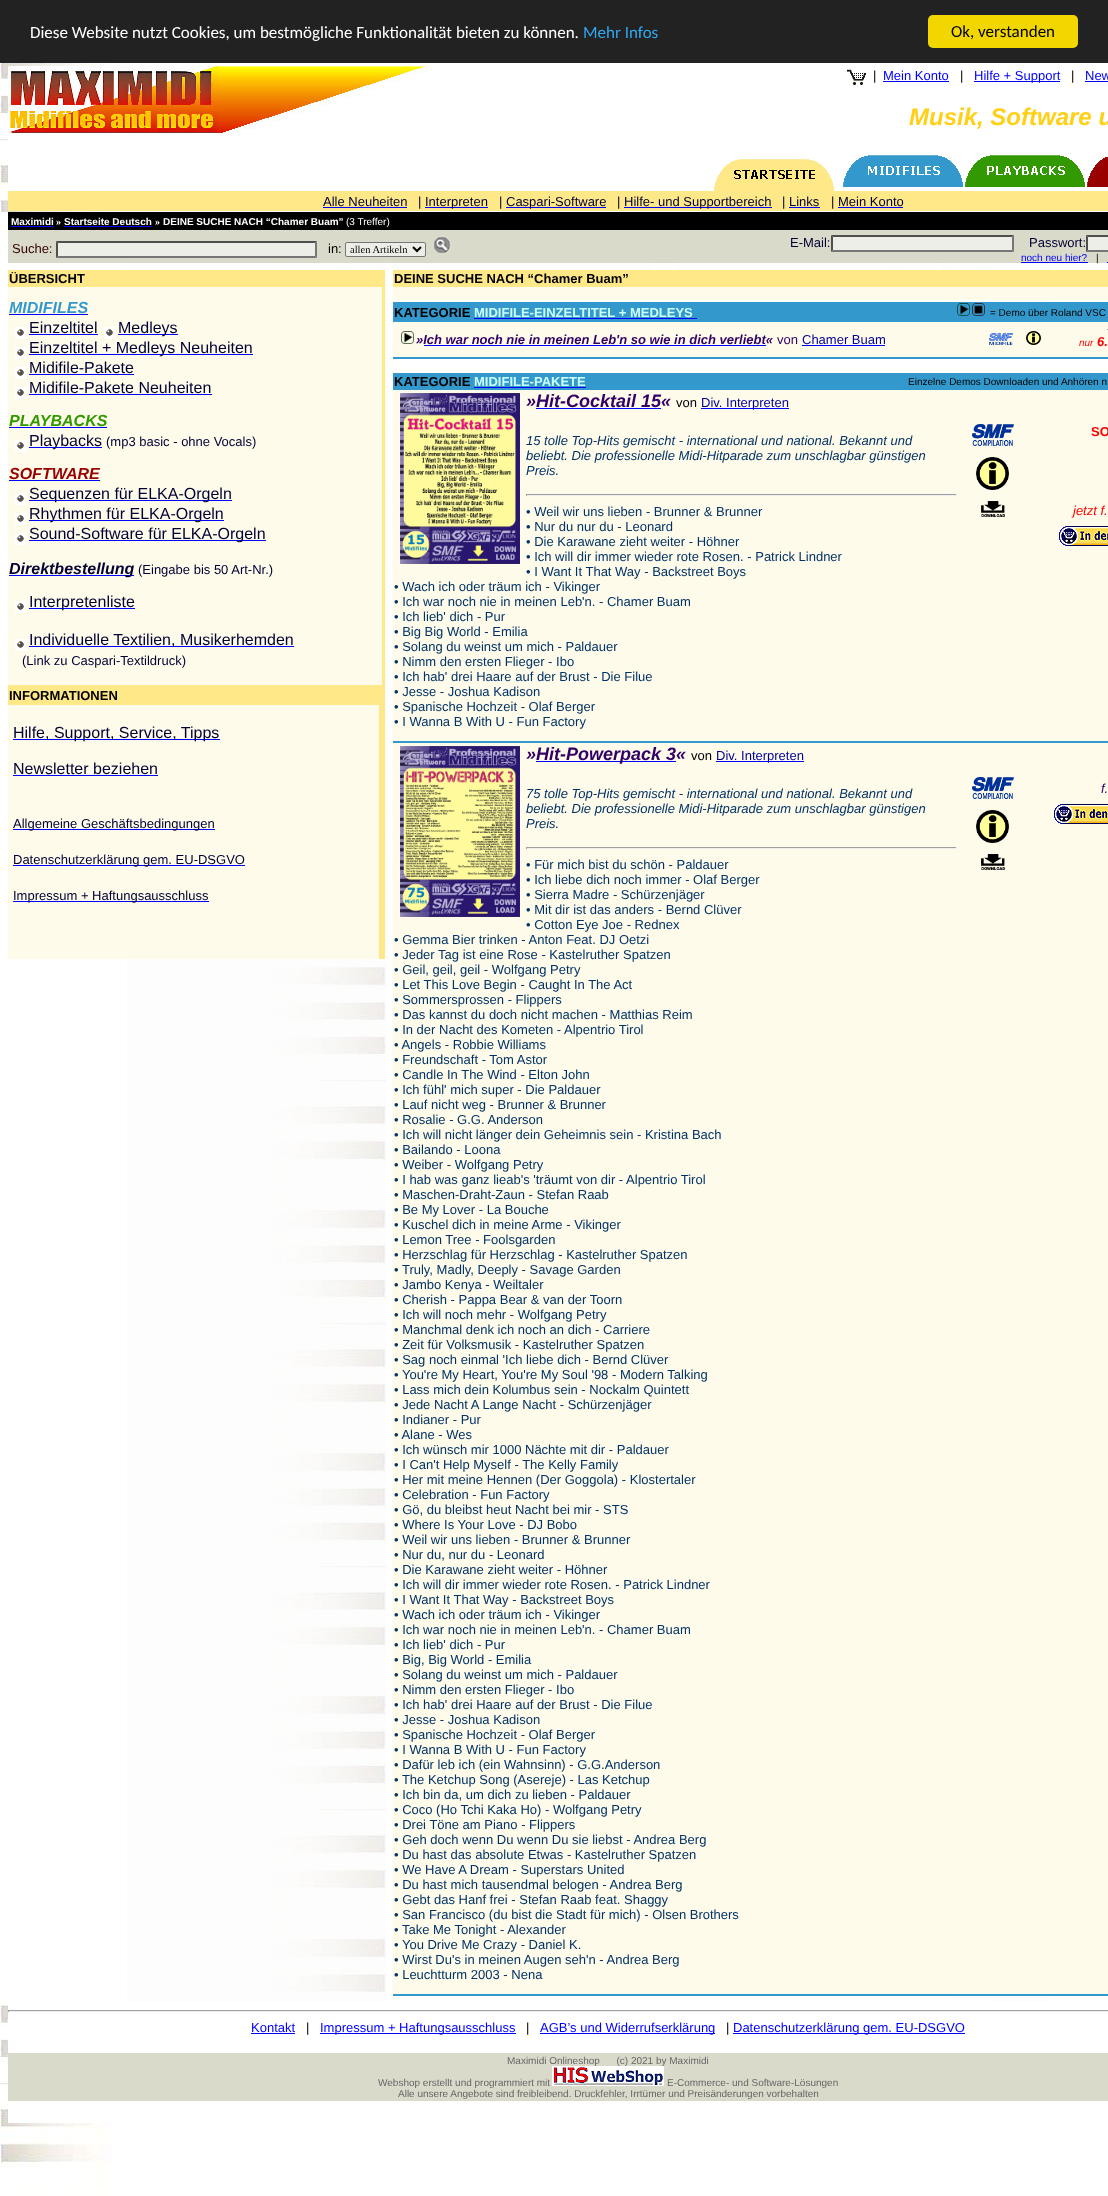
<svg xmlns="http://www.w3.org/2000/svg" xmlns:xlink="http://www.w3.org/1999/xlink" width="1108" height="2196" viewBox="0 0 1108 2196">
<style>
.cls-1{font:17px Carlito;fill:#ffffff}
.cls-2{font:17px Carlito;fill:#31a8f0}
.cls-3{font:17px Carlito;fill:#000000}
.cls-4{font:13px Liberation Sans;fill:#000000}
.cls-5{font:13px Liberation Sans;fill:#0000ff}
.cls-6{font:italic bold 24px Liberation Sans;fill:#ffd015}
.cls-7{font:13px Liberation Sans;fill:#000033}
.cls-8{font:bold 10px Liberation Sans;fill:#ffffff}
.cls-9{font:bold 10px Liberation Serif;fill:#ffffff}
.cls-10{font:10px Liberation Sans;fill:#ffffff}
.cls-11{font:13px Liberation Sans;fill:#330000}
.cls-12{font:10.5px Liberation Serif;fill:#000000}
.cls-13{font:10px Liberation Sans;fill:#0000ff}
.cls-14{font:10px Liberation Sans;fill:#000000}
.cls-15{font:bold 13px Liberation Sans;fill:#000000}
.cls-16{font:italic bold 16px Liberation Sans;fill:#3399cc}
.cls-17{font:16px Liberation Sans;fill:#000033}
.cls-18{font:italic bold 16px Liberation Sans;fill:#339900}
.cls-19{font:italic bold 16px Liberation Sans;fill:#990000}
.cls-20{font:italic bold 16px Liberation Sans;fill:#000033}
.cls-21{font:bold 13px Liberation Sans;fill:#ccffff}
.cls-22{font:italic bold 13px Liberation Sans;fill:#330066}
.cls-23{font:13px Liberation Sans;fill:#330066}
.cls-24{font:13px Liberation Sans;fill:#000099}
.cls-25{font:italic 10px Liberation Sans;fill:#ff0000}
.cls-26{font:italic bold 13px Liberation Sans;fill:#ff0000}
.cls-27{font:italic bold 18px Liberation Sans;fill:#330066}
.cls-28{font:italic 13px Liberation Sans;fill:#003366}
.cls-29{font:13px Liberation Sans;fill:#003366}
.cls-30{font:bold 13px Liberation Sans;fill:#ff0000}
.cls-31{font:italic 13px Liberation Sans;fill:#ff0000}
.cls-32{font:italic 13px Liberation Sans;fill:#330066}
.cls-33{font:10px Liberation Sans;fill:#666666}
</style>
<rect width="100%" height="100%" fill="#ffffff"/>
<image xlink:href="image0.png" x="0" y="63" width="114" height="2133"/>
<rect fill="#222222" x="0" y="0" width="1108" height="63"/>
<rect fill="#f1d600" x="928" y="15" width="150" height="33" rx="5"/>
<image xlink:href="image1.png" x="8" y="66" width="419" height="67"/>
<image xlink:href="image2.png" x="847" y="69" width="19" height="16"/>
<rect fill="#0000ff" x="883" y="81" width="66" height="1"/>
<rect fill="#0000ff" x="974" y="81" width="86" height="1"/>
<rect fill="#0000ff" x="1085" y="81" width="23" height="1"/>
<rect fill="#ffffff" x="8" y="133" width="106" height="58"/>
<image xlink:href="image3.png" x="714" y="159" width="120" height="32"/>
<image xlink:href="image4.png" x="843" y="155" width="120" height="32"/>
<image xlink:href="image5.png" x="965" y="155" width="120" height="32"/>
<image xlink:href="image6.png" x="1087" y="157" width="21" height="30"/>
<rect fill="#ffe888" x="8" y="191" width="1100" height="20"/>
<rect fill="#0000ff" x="323" y="207" width="84" height="1"/>
<rect fill="#0000ff" x="425" y="207" width="63" height="1"/>
<rect fill="#0000ff" x="506" y="207" width="100" height="1"/>
<rect fill="#0000ff" x="624" y="207" width="148" height="1"/>
<image xlink:href="image7.png" x="0" y="212" width="1050" height="1790"/>
<rect fill="#000000" x="8" y="212" width="1100" height="18"/>
<rect fill="#0000ff" x="11" y="226" width="43" height="1"/>
<rect fill="#0000ff" x="64" y="226" width="88" height="1"/>
<rect fill="#dadacb" x="8" y="230" width="1100" height="33"/>
<rect fill="#eeeee8" x="56" y="241" width="261" height="17"/>
<path fill="#4f4f4f" d="M56 241H317L315 243H58Z"/>
<path fill="#767676" d="M317 241V258L315 256V243Z"/>
<path fill="#767676" d="M317 258H56L58 256H315Z"/>
<path fill="#4f4f4f" d="M56 258V241L58 243V256Z"/>
<rect fill="#eeeee8" stroke="#767676" x="345.5" y="242.5" width="80" height="14" rx="1.5"/>
<path fill="none" stroke="#000000" stroke-width="2" d="M413 247L417 251L421 247"/>
<image xlink:href="image8.png" x="433" y="236" width="18" height="17"/>
<rect fill="#eeeee8" x="831" y="235" width="183" height="17"/>
<path fill="#4f4f4f" d="M831 235H1014L1012 237H833Z"/>
<path fill="#767676" d="M1014 235V252L1012 250V237Z"/>
<path fill="#767676" d="M1014 252H831L833 250H1012Z"/>
<path fill="#4f4f4f" d="M831 252V235L833 237V250Z"/>
<rect fill="#eeeee8" x="1086" y="235" width="22" height="17"/>
<path fill="#4f4f4f" d="M1086 235H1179L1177 237H1088Z"/>
<path fill="#767676" d="M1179 252H1086L1088 250H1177Z"/>
<path fill="#4f4f4f" d="M1086 252V235L1088 237V250Z"/>
<rect fill="#0000ff" x="1021" y="262" width="67" height="1"/>
<rect fill="#0000ff" x="1107" y="262" width="1" height="1"/>
<rect fill="#ffe888" x="8" y="270" width="377" height="17"/>
<rect fill="#fffbea" x="8" y="287" width="374" height="398"/>
<rect fill="#0000ff" x="9" y="314" width="79" height="1"/>
<rect fill="#ffe888" x="382" y="287" width="3" height="398"/>
<image xlink:href="image9.png" x="15" y="327" width="12" height="12"/>
<rect fill="#0000ff" x="29" y="334" width="69" height="1"/>
<image xlink:href="image9.png" x="104" y="327" width="12" height="12"/>
<rect fill="#0000ff" x="118" y="334" width="60" height="1"/>
<image xlink:href="image9.png" x="15" y="347" width="12" height="12"/>
<rect fill="#0000ff" x="29" y="354" width="224" height="1"/>
<image xlink:href="image9.png" x="15" y="367" width="12" height="12"/>
<rect fill="#0000ff" x="29" y="374" width="105" height="1"/>
<image xlink:href="image9.png" x="15" y="387" width="12" height="12"/>
<rect fill="#0000ff" x="29" y="394" width="183" height="1"/>
<rect fill="#0000ff" x="9" y="427" width="98" height="1"/>
<image xlink:href="image9.png" x="15" y="440" width="12" height="12"/>
<rect fill="#0000ff" x="29" y="447" width="73" height="1"/>
<rect fill="#0000ff" x="9" y="480" width="91" height="1"/>
<image xlink:href="image9.png" x="15" y="493" width="12" height="12"/>
<rect fill="#0000ff" x="29" y="500" width="203" height="1"/>
<image xlink:href="image9.png" x="15" y="513" width="12" height="12"/>
<rect fill="#0000ff" x="29" y="520" width="195" height="1"/>
<image xlink:href="image9.png" x="15" y="533" width="12" height="12"/>
<rect fill="#0000ff" x="29" y="540" width="237" height="1"/>
<rect fill="#0000ff" x="9" y="575" width="125" height="1"/>
<image xlink:href="image9.png" x="15" y="601" width="12" height="12"/>
<rect fill="#0000ff" x="29" y="608" width="106" height="1"/>
<image xlink:href="image9.png" x="15" y="639" width="12" height="12"/>
<rect fill="#0000ff" x="29" y="646" width="265" height="1"/>
<rect fill="#ffe888" x="8" y="685" width="377" height="20"/>
<rect fill="#fffbea" x="8" y="705" width="371" height="254"/>
<rect fill="#0000ff" x="13" y="739" width="207" height="1"/>
<rect fill="#0000ff" x="13" y="775" width="145" height="1"/>
<rect fill="#0000ff" x="13" y="829" width="202" height="1"/>
<rect fill="#0000ff" x="13" y="865" width="232" height="1"/>
<rect fill="#0000ff" x="13" y="901" width="196" height="1"/>
<rect fill="#ffe888" x="379" y="705" width="6" height="254"/>
<rect fill="#ffe888" x="393" y="270" width="715" height="17"/>
<rect fill="#fffbea" x="393" y="287" width="715" height="13"/>
<rect fill="#ffffff" x="393" y="300" width="596" height="2"/>
<rect fill="#3399cc" x="393" y="302" width="715" height="20"/>
<rect fill="#0000ff" x="474" y="318" width="223" height="1"/>
<image xlink:href="image10.png" x="957" y="303" width="13" height="13"/>
<image xlink:href="image11.png" x="972" y="303" width="13" height="13"/>
<rect fill="#fffbea" x="393" y="322" width="715" height="35"/>
<image xlink:href="image12.png" x="401" y="331" width="13" height="13"/>
<rect fill="#0000ff" x="424" y="345" width="342" height="1"/>
<rect fill="#0000ff" x="802" y="345" width="83" height="1"/>
<image xlink:href="image13.png" x="989" y="333" width="24" height="12"/>
<image xlink:href="image14.png" x="1026" y="331" width="15" height="14"/>
<rect fill="#999999" x="1107" y="329" width="1" height="1"/>
<rect fill="#3399cc" x="393" y="357" width="715" height="2"/>
<rect fill="#ffffff" x="393" y="359" width="657" height="14"/>
<rect fill="#3399cc" x="393" y="373" width="715" height="17"/>
<rect fill="#0000ff" x="474" y="387" width="112" height="1"/>
<rect fill="#fffbea" x="393" y="390" width="715" height="351"/>
<image xlink:href="image15.png" x="400" y="393" width="120" height="171"/>
<rect fill="#0000ff" x="536" y="408" width="125" height="1"/>
<rect fill="#0000ff" x="701" y="408" width="88" height="1"/>
<rect fill="#9f9f9f" x="526" y="494" width="431" height="1"/>
<rect fill="#eeeeee" x="956" y="494" width="1" height="2"/>
<rect fill="#eeeeee" x="526" y="495" width="431" height="1"/>
<rect fill="#9f9f9f" x="526" y="494" width="1" height="2"/>
<image xlink:href="image16.png" x="972" y="424" width="42" height="22"/>
<image xlink:href="image17.png" x="976" y="457" width="33" height="33"/>
<image xlink:href="image18.png" x="981" y="501" width="24" height="16"/>
<image xlink:href="image19.png" x="1059" y="526" width="49" height="20"/>
<rect fill="#3399cc" x="393" y="741" width="715" height="2"/>
<rect fill="#fffbea" x="393" y="743" width="715" height="1251"/>
<image xlink:href="image20.png" x="400" y="746" width="120" height="171"/>
<rect fill="#0000ff" x="536" y="761" width="140" height="1"/>
<rect fill="#0000ff" x="716" y="761" width="88" height="1"/>
<rect fill="#9f9f9f" x="526" y="847" width="431" height="1"/>
<rect fill="#eeeeee" x="956" y="847" width="1" height="2"/>
<rect fill="#eeeeee" x="526" y="848" width="431" height="1"/>
<rect fill="#9f9f9f" x="526" y="847" width="1" height="2"/>
<image xlink:href="image16.png" x="972" y="777" width="42" height="22"/>
<image xlink:href="image17.png" x="976" y="810" width="33" height="33"/>
<image xlink:href="image18.png" x="981" y="854" width="24" height="16"/>
<image xlink:href="image21.png" x="1054" y="804" width="54" height="20"/>
<rect fill="#3399cc" x="393" y="1994" width="715" height="2"/>
<rect fill="#ffffff" x="393" y="1996" width="559" height="4"/>
<rect fill="#ffffff" x="393" y="2000" width="596" height="2"/>
<rect fill="#ffffff" x="8" y="2002" width="106" height="51"/>
<rect fill="#9f9f9f" x="8" y="2010" width="1100" height="1"/>
<rect fill="#eeeeee" x="8" y="2011" width="1100" height="1"/>
<rect fill="#9f9f9f" x="8" y="2010" width="1" height="2"/>
<rect fill="#0000ff" x="251" y="2033" width="44" height="1"/>
<rect fill="#0000ff" x="320" y="2033" width="196" height="1"/>
<rect fill="#0000ff" x="540" y="2033" width="175" height="1"/>
<rect fill="#0000ff" x="733" y="2033" width="232" height="1"/>
<rect fill="#dadacb" x="8" y="2053" width="1100" height="48"/>
<rect fill="#ffffff" x="8" y="2101" width="104" height="22"/>
<text class="cls-1" x="30" y="38">Diese Website nutzt Cookies, um bestmögliche Funktionalität bieten zu können.</text>
<text class="cls-2" x="583" y="38">Mehr Infos</text>
<text class="cls-3" x="951" y="37">Ok, verstanden</text>
<text class="cls-4" x="873" y="80">|</text>
<text class="cls-5" x="883" y="80">Mein Konto</text>
<text class="cls-4" x="960" y="80">|</text>
<text class="cls-5" x="974" y="80">Hilfe + Support</text>
<text class="cls-4" x="1071" y="80">|</text>
<text class="cls-5" x="1085" y="80">New</text>
<text class="cls-6" x="909" y="125">Musik, Software u</text>
<text class="cls-7" x="323" y="206">Alle Neuheiten</text>
<text class="cls-7" x="418" y="206">|</text>
<text class="cls-7" x="425" y="206">Interpreten</text>
<text class="cls-7" x="499" y="206">|</text>
<text class="cls-7" x="506" y="206">Caspari-Software</text>
<text class="cls-7" x="617" y="206">|</text>
<text class="cls-7" x="624" y="206">Hilfe- und Supportbereich</text>
<text class="cls-7" x="782" y="206">| Links</text>
<text class="cls-7" x="831" y="206">| Mein Konto</text>
<rect fill="#0000ff" x="789" y="207" width="31" height="1"/>
<rect fill="#0000ff" x="838" y="207" width="65" height="1"/>
<text class="cls-8" x="11" y="225">Maximidi</text>
<text class="cls-9" x="56" y="225">»</text>
<text class="cls-8" x="64" y="225">Startseite Deutsch</text>
<text class="cls-9" x="155" y="225">»</text>
<text class="cls-8" x="163" y="225">DEINE SUCHE NACH “Chamer Buam”</text>
<text class="cls-10" x="346" y="225">(3 Treffer)</text>
<text class="cls-11" x="12" y="253">Suche:</text>
<text class="cls-4" x="328" y="253">in:</text>
<text class="cls-12" x="350" y="253">allen Artikeln</text>
<text class="cls-7" x="790" y="247">E-Mail:</text>
<text class="cls-7" x="1029" y="247">Passwort:</text>
<text class="cls-13" x="1021" y="261">noch neu hier?</text>
<text class="cls-14" x="1096" y="261">|</text>
<text class="cls-15" x="9" y="283">ÜBERSICHT</text>
<text class="cls-16" x="9" y="313">MIDIFILES</text>
<text class="cls-17" x="29" y="333">Einzeltitel</text>
<text class="cls-17" x="118" y="333">Medleys</text>
<text class="cls-17"><tspan x="29" y="353">Einzeltitel + Medleys Neuheiten</tspan><tspan x="29" y="373">Midifile-Pakete</tspan><tspan x="29" y="393">Midifile-Pakete Neuheiten</tspan></text>
<text class="cls-18" x="9" y="426">PLAYBACKS</text>
<text class="cls-17" x="29" y="446">Playbacks</text>
<text class="cls-7" x="106" y="446">(mp3 basic - ohne Vocals)</text>
<text class="cls-19" x="9" y="479">SOFTWARE</text>
<text class="cls-17"><tspan x="29" y="499">Sequenzen für ELKA-Orgeln</tspan><tspan x="29" y="519">Rhythmen für ELKA-Orgeln</tspan><tspan x="29" y="539">Sound-Software für ELKA-Orgeln</tspan></text>
<text class="cls-20" x="9" y="574">Direktbestellung</text>
<text class="cls-7" x="138" y="574">(Eingabe bis 50 Art-Nr.)</text>
<text class="cls-17" x="29" y="607">Interpretenliste</text>
<text class="cls-17" x="29" y="645">Individuelle Textilien, Musikerhemden</text>
<text class="cls-7" x="22" y="665">(Link zu Caspari-Textildruck)</text>
<text class="cls-15" x="9" y="700">INFORMATIONEN</text>
<text class="cls-17" x="13" y="738">Hilfe, Support, Service, Tipps</text>
<text class="cls-17" x="13" y="774">Newsletter beziehen</text>
<text class="cls-7" x="13" y="828">Allgemeine Geschäftsbedingungen</text>
<text class="cls-7" x="13" y="864">Datenschutzerklärung gem. EU-DSGVO</text>
<text class="cls-7" x="13" y="900">Impressum + Haftungsausschluss</text>
<text class="cls-15" x="394" y="283">DEINE SUCHE NACH “Chamer Buam”</text>
<text class="cls-15" x="394" y="317">KATEGORIE</text>
<text class="cls-21" x="474" y="317">MIDIFILE-EINZELTITEL + MEDLEYS</text>
<text class="cls-14" x="990" y="316">= Demo über Roland VSC</text>
<text class="cls-22" x="416" y="344">»Ich war noch nie in meinen Leb'n so wie in dich verliebt«</text>
<text class="cls-23" x="777" y="344">von</text>
<text class="cls-24" x="802" y="344">Chamer Buam</text>
<text class="cls-25" x="1079" y="346">nur</text>
<text class="cls-26" x="1097" y="346">6.</text>
<text class="cls-15" x="394" y="386">KATEGORIE</text>
<text class="cls-21" x="474" y="386">MIDIFILE-PAKETE</text>
<text class="cls-14" x="908" y="385">Einzelne Demos Downloaden und Anhören n</text>
<text class="cls-27" x="526" y="407">»Hit-Cocktail 15«</text>
<text class="cls-4" x="676" y="407">von</text>
<text class="cls-24" x="701" y="407">Div. Interpreten</text>
<text class="cls-28"><tspan x="526" y="445">15 tolle Top-Hits gemischt - international und national. Bekannt und</tspan><tspan x="526" y="460">beliebt. Die professionelle Midi-Hitparade zum unschlagbar günstigen</tspan><tspan x="526" y="475">Preis.</tspan></text>
<text class="cls-29"><tspan x="526" y="516">• Weil wir uns lieben - Brunner &amp; Brunner</tspan><tspan x="526" y="531">• Nur du nur du - Leonard</tspan><tspan x="526" y="546">• Die Karawane zieht weiter - Höhner</tspan><tspan x="526" y="561">• Ich will dir immer wieder rote Rosen. - Patrick Lindner</tspan><tspan x="526" y="576">• I Want It That Way - Backstreet Boys</tspan></text>
<text class="cls-29"><tspan x="394" y="591">• Wach ich oder träum ich - Vikinger</tspan><tspan x="394" y="606">• Ich war noch nie in meinen Leb'n. - Chamer Buam</tspan><tspan x="394" y="621">• Ich lieb' dich - Pur</tspan><tspan x="394" y="636">• Big Big World - Emilia</tspan><tspan x="394" y="651">• Solang du weinst um mich - Paldauer</tspan><tspan x="394" y="666">• Nimm den ersten Flieger - Ibo</tspan><tspan x="394" y="681">• Ich hab' drei Haare auf der Brust - Die Filue</tspan><tspan x="394" y="696">• Jesse - Joshua Kadison</tspan><tspan x="394" y="711">• Spanische Hochzeit - Olaf Berger</tspan><tspan x="394" y="726">• I Wanna B With U - Fun Factory</tspan></text>
<text class="cls-30" x="1091" y="436">SO</text>
<text class="cls-31" x="1073" y="515">jetzt f.</text>
<text class="cls-27" x="526" y="760">»</text>
<text class="cls-27" x="536" y="760">Hit-Powerpack 3«</text>
<text class="cls-4" x="691" y="760">von</text>
<text class="cls-24" x="716" y="760">Div. Interpreten</text>
<text class="cls-28"><tspan x="526" y="798">75 tolle Top-Hits gemischt - international und national. Bekannt und</tspan><tspan x="526" y="813">beliebt. Die professionelle Midi-Hitparade zum unschlagbar günstigen</tspan><tspan x="526" y="828">Preis.</tspan></text>
<text class="cls-29"><tspan x="526" y="869">• Für mich bist du schön - Paldauer</tspan><tspan x="526" y="884">• Ich liebe dich noch immer - Olaf Berger</tspan><tspan x="526" y="899">• Sierra Madre - Schürzenjäger</tspan><tspan x="526" y="914">• Mit dir ist das anders - Bernd Clüver</tspan><tspan x="526" y="929">• Cotton Eye Joe - Rednex</tspan></text>
<text class="cls-29"><tspan x="394" y="944">• Gemma Bier trinken - Anton Feat. DJ Oetzi</tspan><tspan x="394" y="959">• Jeder Tag ist eine Rose - Kastelruther Spatzen</tspan><tspan x="394" y="974">• Geil, geil, geil - Wolfgang Petry</tspan><tspan x="394" y="989">• Let This Love Begin - Caught In The Act</tspan><tspan x="394" y="1004">• Sommersprossen - Flippers</tspan><tspan x="394" y="1019">• Das kannst du doch nicht machen - Matthias Reim</tspan><tspan x="394" y="1034">• In der Nacht des Kometen - Alpentrio Tirol</tspan><tspan x="394" y="1049">• Angels - Robbie Williams</tspan><tspan x="394" y="1064">• Freundschaft - Tom Astor</tspan><tspan x="394" y="1079">• Candle In The Wind - Elton John</tspan><tspan x="394" y="1094">• Ich fühl' mich super - Die Paldauer</tspan><tspan x="394" y="1109">• Lauf nicht weg - Brunner &amp; Brunner</tspan><tspan x="394" y="1124">• Rosalie - G.G. Anderson</tspan><tspan x="394" y="1139">• Ich will nicht länger dein Geheimnis sein - Kristina Bach</tspan><tspan x="394" y="1154">• Bailando - Loona</tspan><tspan x="394" y="1169">• Weiber - Wolfgang Petry</tspan><tspan x="394" y="1184">• I hab was ganz lieab's 'träumt von dir - Alpentrio Tirol</tspan><tspan x="394" y="1199">• Maschen-Draht-Zaun - Stefan Raab</tspan><tspan x="394" y="1214">• Be My Lover - La Bouche</tspan><tspan x="394" y="1229">• Kuschel dich in meine Arme - Vikinger</tspan><tspan x="394" y="1244">• Lemon Tree - Foolsgarden</tspan><tspan x="394" y="1259">• Herzschlag für Herzschlag - Kastelruther Spatzen</tspan><tspan x="394" y="1274">• Truly, Madly, Deeply - Savage Garden</tspan><tspan x="394" y="1289">• Jambo Kenya - Weiltaler</tspan><tspan x="394" y="1304">• Cherish - Pappa Bear &amp; van der Toorn</tspan><tspan x="394" y="1319">• Ich will noch mehr - Wolfgang Petry</tspan><tspan x="394" y="1334">• Manchmal denk ich noch an dich - Carriere</tspan><tspan x="394" y="1349">• Zeit für Volksmusik - Kastelruther Spatzen</tspan><tspan x="394" y="1364">• Sag noch einmal 'Ich liebe dich - Bernd Clüver</tspan><tspan x="394" y="1379">• You're My Heart, You're My Soul '98 - Modern Talking</tspan><tspan x="394" y="1394">• Lass mich dein Kolumbus sein - Nockalm Quintett</tspan><tspan x="394" y="1409">• Jede Nacht A Lange Nacht - Schürzenjäger</tspan><tspan x="394" y="1424">• Indianer - Pur</tspan><tspan x="394" y="1439">• Alane - Wes</tspan><tspan x="394" y="1454">• Ich wünsch mir 1000 Nächte mit dir - Paldauer</tspan><tspan x="394" y="1469">• I Can't Help Myself - The Kelly Family</tspan><tspan x="394" y="1484">• Her mit meine Hennen (Der Goggola) - Klostertaler</tspan><tspan x="394" y="1499">• Celebration - Fun Factory</tspan><tspan x="394" y="1514">• Gö, du bleibst heut Nacht bei mir - STS</tspan><tspan x="394" y="1529">• Where Is Your Love - DJ Bobo</tspan><tspan x="394" y="1544">• Weil wir uns lieben - Brunner &amp; Brunner</tspan><tspan x="394" y="1559">• Nur du, nur du - Leonard</tspan><tspan x="394" y="1574">• Die Karawane zieht weiter - Höhner</tspan><tspan x="394" y="1589">• Ich will dir immer wieder rote Rosen. - Patrick Lindner</tspan><tspan x="394" y="1604">• I Want It That Way - Backstreet Boys</tspan><tspan x="394" y="1619">• Wach ich oder träum ich - Vikinger</tspan><tspan x="394" y="1634">• Ich war noch nie in meinen Leb'n. - Chamer Buam</tspan><tspan x="394" y="1649">• Ich lieb' dich - Pur</tspan><tspan x="394" y="1664">• Big, Big World - Emilia</tspan><tspan x="394" y="1679">• Solang du weinst um mich - Paldauer</tspan><tspan x="394" y="1694">• Nimm den ersten Flieger - Ibo</tspan><tspan x="394" y="1709">• Ich hab' drei Haare auf der Brust - Die Filue</tspan><tspan x="394" y="1724">• Jesse - Joshua Kadison</tspan><tspan x="394" y="1739">• Spanische Hochzeit - Olaf Berger</tspan><tspan x="394" y="1754">• I Wanna B With U - Fun Factory</tspan><tspan x="394" y="1769">• Dafür leb ich (ein Wahnsinn) - G.G.Anderson</tspan><tspan x="394" y="1784">• The Ketchup Song (Asereje) - Las Ketchup</tspan><tspan x="394" y="1799">• Ich bin da, um dich zu lieben - Paldauer</tspan><tspan x="394" y="1814">• Coco (Ho Tchi Kaka Ho) - Wolfgang Petry</tspan><tspan x="394" y="1829">• Drei Töne am Piano - Flippers</tspan><tspan x="394" y="1844">• Geh doch wenn Du wenn Du sie liebst - Andrea Berg</tspan><tspan x="394" y="1859">• Du hast das absolute Etwas - Kastelruther Spatzen</tspan><tspan x="394" y="1874">• We Have A Dream - Superstars United</tspan><tspan x="394" y="1889">• Du hast mich tausendmal belogen - Andrea Berg</tspan><tspan x="394" y="1904">• Gebt das Hanf frei - Stefan Raab feat. Shaggy</tspan><tspan x="394" y="1919">• San Francisco (du bist die Stadt für mich) - Olsen Brothers</tspan><tspan x="394" y="1934">• Take Me Tonight - Alexander</tspan><tspan x="394" y="1949">• You Drive Me Crazy - Daniel K.</tspan><tspan x="394" y="1964">• Wirst Du's in meinen Augen seh'n - Andrea Berg</tspan><tspan x="394" y="1979">• Leuchtturm 2003 - Nena</tspan></text>
<text class="cls-32" x="1101" y="793">f.</text>
<text class="cls-5" x="251" y="2032">Kontakt</text>
<text class="cls-4" x="306" y="2032">|</text>
<text class="cls-5" x="320" y="2032">Impressum + Haftungsausschluss</text>
<text class="cls-4" x="526" y="2032">|</text>
<text class="cls-5" x="540" y="2032">AGB’s und Widerrufserklärung</text>
<text class="cls-4" x="726" y="2032">|</text>
<text class="cls-5" x="733" y="2032">Datenschutzerklärung gem. EU-DSGVO</text>
<text class="cls-33" xml:space="preserve" x="507" y="2064">Maximidi Onlineshop      (c) 2021 by Maximidi</text>
<text class="cls-33" x="378" y="2086">Webshop erstellt und programmiert mit</text>
<image xlink:href="image22.png" x="552" y="2066" width="112" height="20"/>
<text class="cls-33" x="667" y="2086">E-Commerce- und Software-Lösungen</text>
<text class="cls-33" x="398" y="2097">Alle unsere Angebote sind freibleibend. Druckfehler, Irrtümer und Preisänderungen vorbehalten</text>
</svg>
